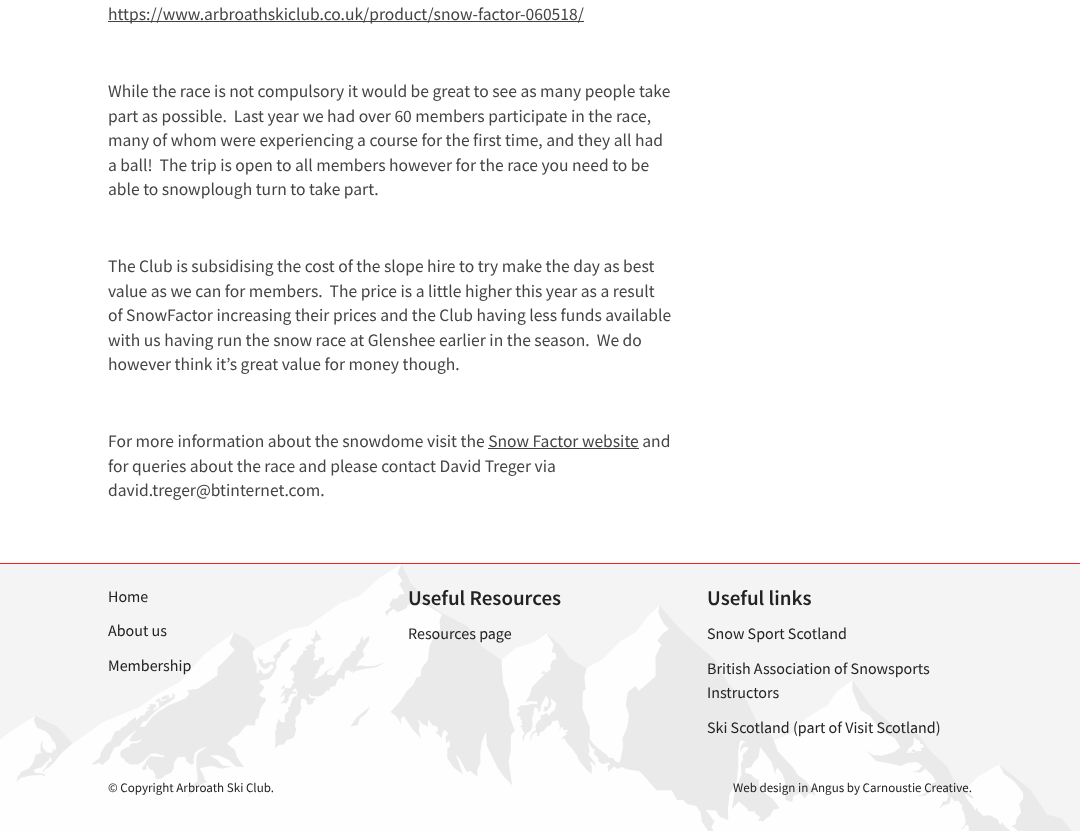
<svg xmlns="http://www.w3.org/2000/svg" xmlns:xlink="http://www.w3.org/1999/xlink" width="1080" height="831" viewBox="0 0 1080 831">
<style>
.cls-1{font:17.5px Source Sans Pro;fill:#444444}
.cls-2{font:16px Source Sans Pro;fill:#222222}
.cls-3{font:600 21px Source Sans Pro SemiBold;fill:#222222}
.cls-4{font:13px Source Sans Pro;fill:#222222}
</style>
<rect width="100%" height="100%" fill="#ffffff"/>
<rect fill="#444444" x="108" y="21" width="476" height="1"/>
<rect fill="#444444" x="488" y="448" width="151" height="1"/>
<rect fill="#f4f4f4" x="0" y="564" width="1080" height="267"/>
<image xlink:href="image0.png" x="0" y="565" width="1072" height="266"/>
<rect fill="#ef2324" x="0" y="563" width="1080" height="1"/>
<text class="cls-1" x="108" y="20">https://www.arbroathskiclub.co.uk/product/snow-factor-060518/</text>
<text class="cls-1" xml:space="preserve"><tspan x="108" y="97">While the race is not compulsory it would be great to see as many people take</tspan><tspan x="108" y="122">part as possible.  Last year we had over 60 members participate in the race,</tspan><tspan x="108" y="146">many of whom were experiencing a course for the first time, and they all had</tspan><tspan x="108" y="171">a ball!  The trip is open to all members however for the race you need to be</tspan><tspan x="108" y="195">able to snowplough turn to take part.</tspan></text>
<text class="cls-1" xml:space="preserve"><tspan x="108" y="272">The Club is subsidising the cost of the slope hire to try make the day as best</tspan><tspan x="108" y="297">value as we can for members.  The price is a little higher this year as a result</tspan><tspan x="108" y="321">of SnowFactor increasing their prices and the Club having less funds available</tspan><tspan x="108" y="346">with us having run the snow race at Glenshee earlier in the season.  We do</tspan><tspan x="108" y="370">however think it’s great value for money though.</tspan></text>
<text class="cls-1"><tspan x="108" y="447">For more information about the snowdome visit the Snow Factor website and</tspan><tspan x="108" y="472">for queries about the race and please contact David Treger via</tspan><tspan x="108" y="496">david.treger@btinternet.com.</tspan></text>
<text class="cls-2" x="108" y="602">Home</text>
<text class="cls-2" x="108" y="636">About us</text>
<text class="cls-2" x="108" y="671">Membership</text>
<text class="cls-3" x="408" y="605">Useful Resources</text>
<text class="cls-2" x="408" y="639">Resources page</text>
<text class="cls-3" x="707" y="605">Useful links</text>
<text class="cls-2" x="707" y="639">Snow Sport Scotland</text>
<text class="cls-2"><tspan x="707" y="674">British Association of Snowsports</tspan><tspan x="707" y="698">Instructors</tspan></text>
<text class="cls-2" x="707" y="733">Ski Scotland (part of Visit Scotland)</text>
<text class="cls-4" x="108" y="792">© Copyright Arbroath Ski Club.</text>
<text class="cls-4" x="733" y="792">Web design in Angus by Carnoustie Creative.</text>
</svg>
